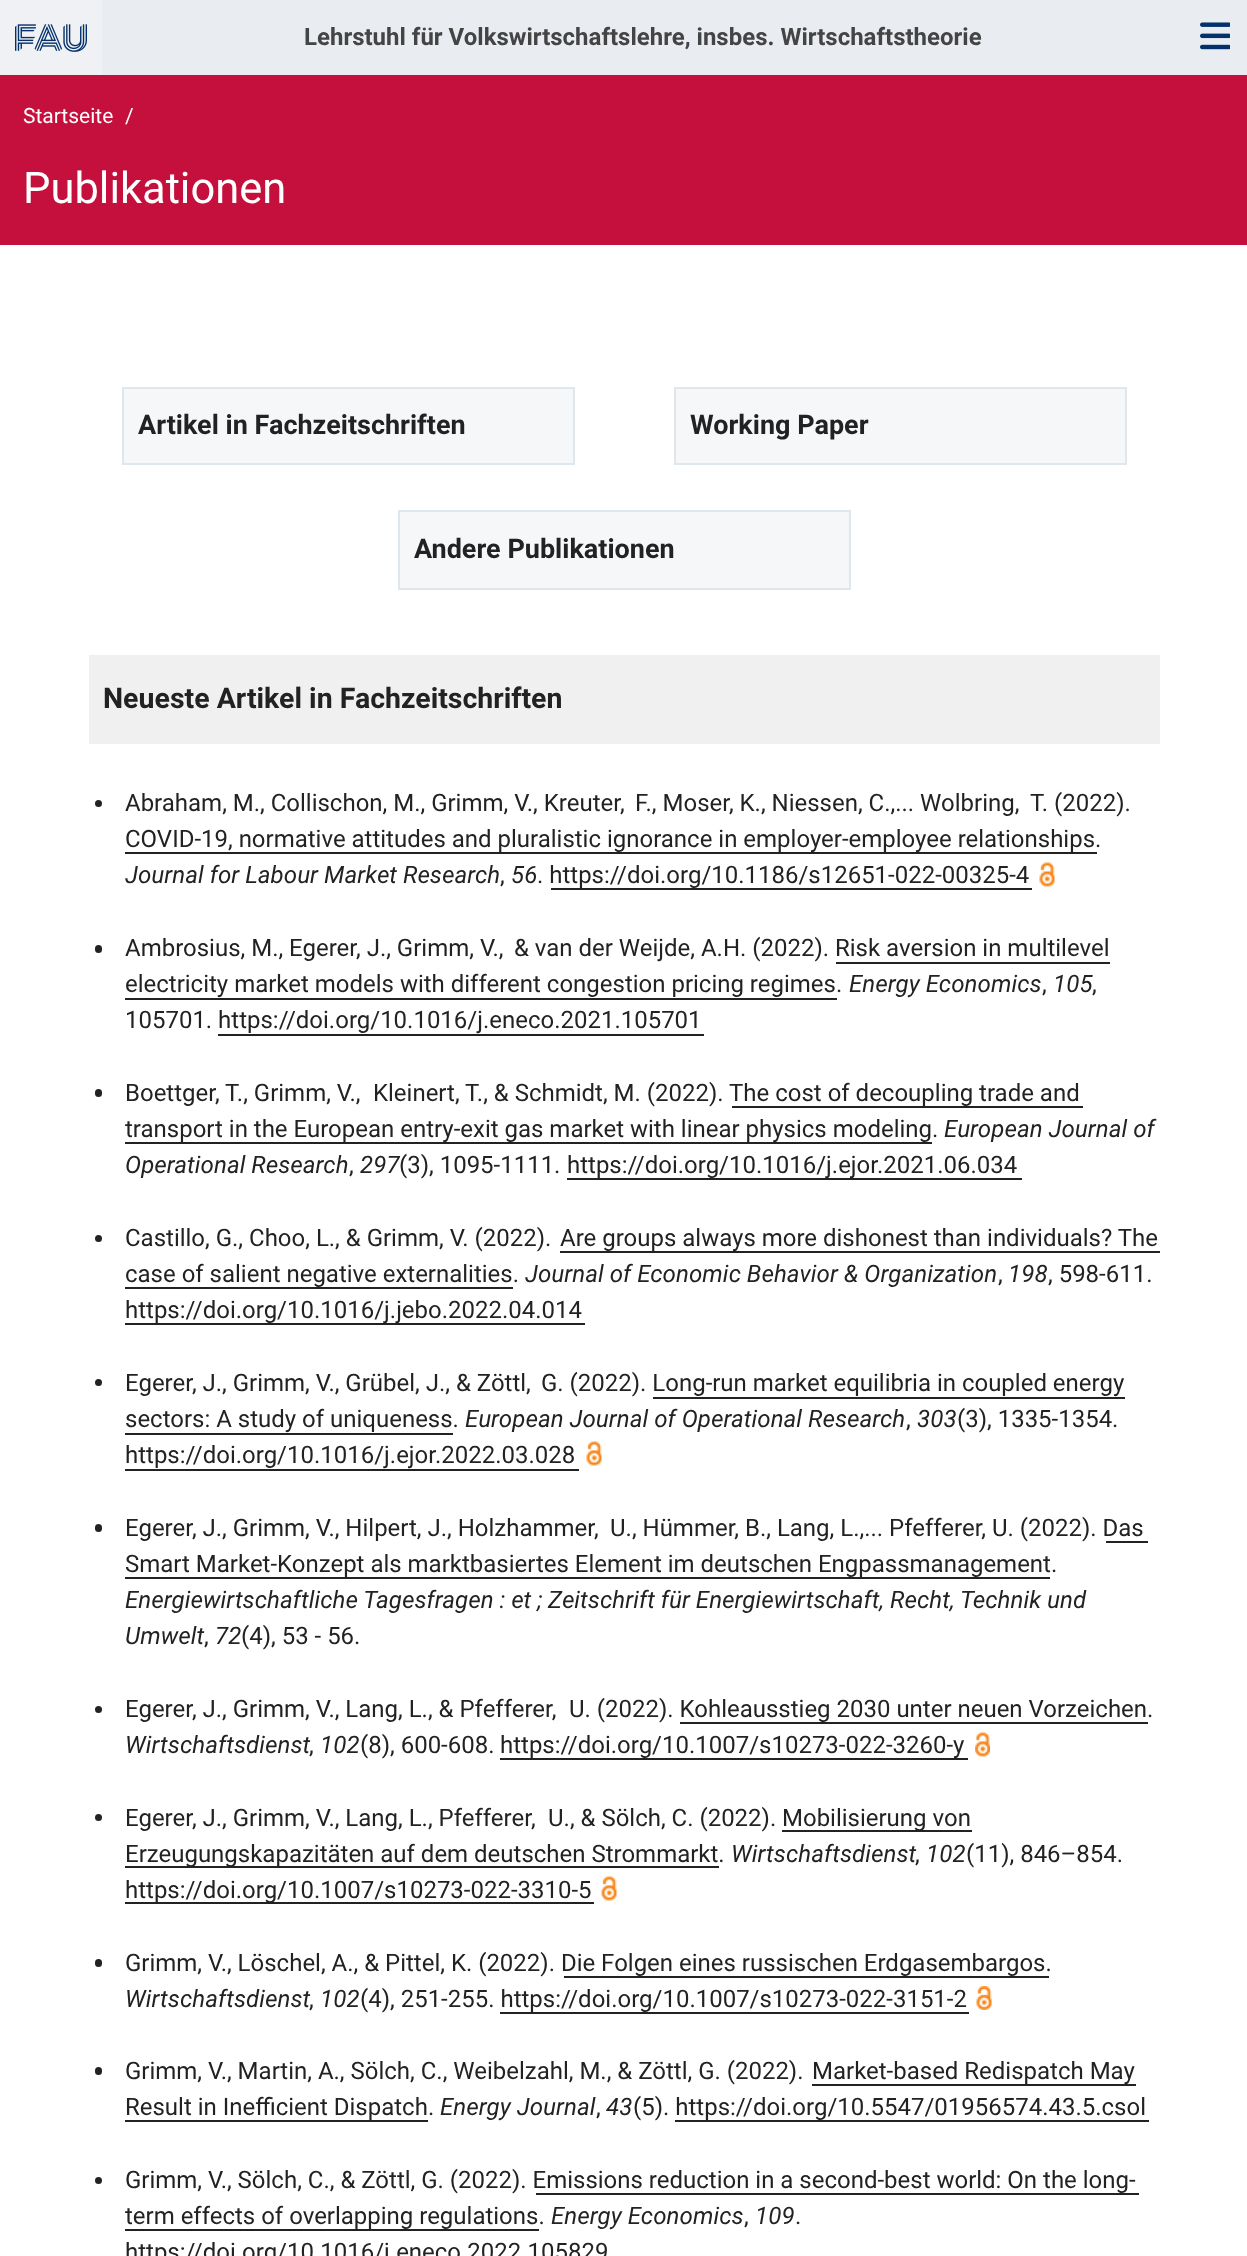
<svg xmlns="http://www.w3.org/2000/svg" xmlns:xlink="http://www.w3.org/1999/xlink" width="1247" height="2256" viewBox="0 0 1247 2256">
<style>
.cls-1{font:bold 24px Roboto;fill:#444444}
.cls-2{font:21px Roboto;fill:#ffffff}
.cls-3{font:43.5px Roboto;fill:#ffffff}
.cls-4{font:bold 27px Roboto;fill:#222222}
.cls-5{font:bold 28.5px Roboto;fill:#222222}
.cls-6{font:24px Roboto;fill:#222222}
.cls-7{font:italic 24px Roboto;fill:#222222}
</style>
<rect width="100%" height="100%" fill="#ffffff"/>
<rect fill="#e9edf2" x="102" y="0" width="1145" height="75"/>
<rect fill="#eff1f4" x="0" y="0" width="102" height="75"/>
<image xlink:href="image0.png" x="15" y="24" width="72" height="28"/>
<image xlink:href="image1.png" x="1200" y="22" width="30" height="28"/>
<rect fill="#c50f3c" x="0" y="75" width="1247" height="170"/>
<rect fill="#f5f7f9" stroke="#dfe6ec" stroke-width="2" x="123" y="388" width="451" height="76"/>
<rect fill="#f5f7f9" stroke="#dfe6ec" stroke-width="2" x="675" y="388" width="451" height="76"/>
<rect fill="#f5f7f9" stroke="#dfe6ec" stroke-width="2" x="399" y="511" width="451" height="78"/>
<rect fill="#f0f0f0" x="89" y="655" width="1071" height="89"/>
<circle fill="#222222" cx="98.5" cy="803.5" r="3.5"/>
<rect fill="#222222" x="125" y="852" width="972" height="2"/>
<image xlink:href="image2.png" x="1039" y="862" width="16" height="25"/>
<rect fill="#222222" x="551" y="888" width="481" height="2"/>
<rect fill="#222222" x="95" y="945" width="7" height="8" rx="3.5"/>
<rect fill="#222222" x="836" y="962" width="274" height="2"/>
<rect fill="#222222" x="125" y="998" width="712" height="2"/>
<rect fill="#222222" x="218" y="1034" width="486" height="2"/>
<rect fill="#222222" x="95" y="1089" width="7" height="8" rx="3.5"/>
<rect fill="#222222" x="732" y="1106" width="351" height="2"/>
<rect fill="#222222" x="125" y="1142" width="807" height="2"/>
<rect fill="#222222" x="567" y="1178" width="455" height="2"/>
<circle fill="#222222" cx="98.5" cy="1238.5" r="3.5"/>
<rect fill="#222222" x="560" y="1251" width="600" height="2"/>
<rect fill="#222222" x="125" y="1287" width="388" height="2"/>
<rect fill="#222222" x="125" y="1323" width="460" height="2"/>
<circle fill="#222222" cx="98.5" cy="1382.5" r="3.5"/>
<rect fill="#222222" x="653" y="1397" width="472" height="2"/>
<rect fill="#222222" x="125" y="1433" width="328" height="2"/>
<rect fill="#222222" x="125" y="1469" width="454" height="2"/>
<image xlink:href="image3.png" x="586" y="1441" width="16" height="25"/>
<rect fill="#222222" x="95" y="1524" width="7" height="8" rx="3.5"/>
<rect fill="#222222" x="1106" y="1541" width="42" height="2"/>
<rect fill="#222222" x="125" y="1577" width="925" height="2"/>
<circle fill="#222222" cx="98.5" cy="1709.5" r="3.5"/>
<rect fill="#222222" x="680" y="1722" width="468" height="2"/>
<rect fill="#222222" x="500" y="1758" width="468" height="2"/>
<image xlink:href="image4.png" x="975" y="1732" width="15" height="25"/>
<circle fill="#222222" cx="98.5" cy="1817.5" r="3.5"/>
<rect fill="#222222" x="782" y="1830" width="190" height="2"/>
<rect fill="#222222" x="125" y="1866" width="594" height="2"/>
<rect fill="#222222" x="125" y="1902" width="469" height="2"/>
<image xlink:href="image3.png" x="601" y="1876" width="16" height="25"/>
<rect fill="#222222" x="95" y="1959" width="7" height="8" rx="3.5"/>
<rect fill="#222222" x="564" y="1976" width="485" height="2"/>
<image xlink:href="image5.png" x="976" y="1986" width="16" height="24"/>
<rect fill="#222222" x="500" y="2012" width="469" height="2"/>
<rect fill="#222222" x="95" y="2067" width="7" height="8" rx="3.5"/>
<rect fill="#222222" x="812" y="2084" width="324" height="2"/>
<rect fill="#222222" x="125" y="2120" width="303" height="2"/>
<rect fill="#222222" x="675" y="2120" width="474" height="2"/>
<circle fill="#222222" cx="98.5" cy="2180.5" r="3.5"/>
<rect fill="#222222" x="536" y="2193" width="603" height="2"/>
<rect fill="#222222" x="125" y="2229" width="414" height="2"/>
<text class="cls-1" x="304" y="45">Lehrstuhl für Volkswirtschaftslehre, insbes. Wirtschaftstheorie</text>
<text class="cls-2" x="23" y="123">Startseite</text>
<text class="cls-2" x="125" y="123">/</text>
<text class="cls-3" x="23" y="203">Publikationen</text>
<text class="cls-4" x="138" y="434">Artikel in Fachzeitschriften</text>
<text class="cls-4" x="690" y="434">Working Paper</text>
<text class="cls-4" x="414" y="558">Andere Publikationen</text>
<text class="cls-5" x="103" y="708">Neueste Artikel in Fachzeitschriften</text>
<text class="cls-6" x="125" y="811">Abraham, M., Collischon, M., Grimm, V., Kreuter,</text>
<text class="cls-6" x="635" y="811">F., Moser, K., Niessen, C.,... Wolbring,</text>
<text class="cls-6" x="1030" y="811">T. (2022).</text>
<text class="cls-6" x="125" y="847">COVID-19, normative attitudes and pluralistic ignorance in employer-employee relationships.</text>
<text class="cls-7" x="125" y="883">Journal for Labour Market Research</text>
<text class="cls-6" x="500" y="883">,</text>
<text class="cls-7" x="511" y="883">56</text>
<text class="cls-6" x="537" y="883">. https://doi.org/10.1186/s12651-022-00325-4</text>
<text class="cls-6" x="125" y="956">Ambrosius, M., Egerer, J., Grimm, V.,</text>
<text class="cls-6" x="514" y="956">&amp; van der Weijde, A.H. (2022). Risk aversion in multilevel</text>
<text class="cls-6" x="125" y="992">electricity market models with different congestion pricing regimes.</text>
<text class="cls-7" x="849" y="992">Energy Economics</text>
<text class="cls-6" x="1042" y="992">,</text>
<text class="cls-7" x="1053" y="992">105</text>
<text class="cls-6" x="1092" y="992">,</text>
<text class="cls-6" x="125" y="1028">105701. https://doi.org/10.1016/j.eneco.2021.105701</text>
<text class="cls-6" x="125" y="1101">Boettger, T., Grimm, V.,</text>
<text class="cls-6" x="373" y="1101">Kleinert, T., &amp; Schmidt, M. (2022). The cost of decoupling trade and</text>
<text class="cls-6" x="125" y="1137">transport in the European entry-exit gas market with linear physics modeling.</text>
<text class="cls-7" x="944" y="1137">European Journal of</text>
<text class="cls-7" x="125" y="1173">Operational Research</text>
<text class="cls-6" x="349" y="1173">,</text>
<text class="cls-7" x="360" y="1173">297</text>
<text class="cls-6" x="399" y="1173">(3), 1095-1111.</text>
<text class="cls-6" x="567" y="1173">https://doi.org/10.1016/j.ejor.2021.06.034</text>
<text class="cls-6" x="125" y="1246">Castillo, G., Choo, L., &amp; Grimm, V. (2022).</text>
<text class="cls-6" x="560" y="1246">Are groups always more dishonest than individuals? The</text>
<text class="cls-6" x="125" y="1282">case of salient negative externalities.</text>
<text class="cls-7" x="525" y="1282">Journal of Economic Behavior &amp; Organization</text>
<text class="cls-6" x="998" y="1282">,</text>
<text class="cls-7" x="1008" y="1282">198</text>
<text class="cls-6" x="1048" y="1282">, 598-611.</text>
<text class="cls-6" x="125" y="1318">https://doi.org/10.1016/j.jebo.2022.04.014</text>
<text class="cls-6" x="125" y="1391">Egerer, J., Grimm, V., Grübel, J., &amp; Zöttl,</text>
<text class="cls-6" x="541" y="1391">G. (2022). Long-run market equilibria in coupled energy</text>
<text class="cls-6" x="125" y="1427">sectors: A study of uniqueness.</text>
<text class="cls-7" x="465" y="1427">European Journal of Operational Research</text>
<text class="cls-6" x="906" y="1427">,</text>
<text class="cls-7" x="917" y="1427">303</text>
<text class="cls-6" x="957" y="1427">(3), 1335-1354.</text>
<text class="cls-6" x="125" y="1463">https://doi.org/10.1016/j.ejor.2022.03.028</text>
<text class="cls-6" x="125" y="1536">Egerer, J., Grimm, V., Hilpert, J., Holzhammer,</text>
<text class="cls-6" x="610" y="1536">U., Hümmer, B., Lang, L.,... Pfefferer, U. (2022). Das</text>
<text class="cls-6" x="125" y="1572">Smart Market-Konzept als marktbasiertes Element im deutschen Engpassmanagement.</text>
<text class="cls-7"><tspan x="125" y="1608">Energiewirtschaftliche Tagesfragen : et ; Zeitschrift für Energiewirtschaft, Recht, Technik und</tspan><tspan x="125" y="1644">Umwelt</tspan></text>
<text class="cls-6" x="204" y="1644">,</text>
<text class="cls-7" x="215" y="1644">72</text>
<text class="cls-6" x="241" y="1644">(4), 53 - 56.</text>
<text class="cls-6" x="125" y="1717">Egerer, J., Grimm, V., Lang, L., &amp; Pfefferer,</text>
<text class="cls-6" x="569" y="1717">U. (2022). Kohleausstieg 2030 unter neuen Vorzeichen.</text>
<text class="cls-7" x="125" y="1753">Wirtschaftsdienst</text>
<text class="cls-6" x="309" y="1753">,</text>
<text class="cls-7" x="320" y="1753">102</text>
<text class="cls-6" x="360" y="1753">(8), 600-608.</text>
<text class="cls-6" x="500" y="1753">https://doi.org/10.1007/s10273-022-3260-y</text>
<text class="cls-6" x="125" y="1826">Egerer, J., Grimm, V., Lang, L., Pfefferer,</text>
<text class="cls-6" x="548" y="1826">U., &amp; Sölch, C. (2022).</text>
<text class="cls-6" x="782" y="1826">Mobilisierung von</text>
<text class="cls-6" x="125" y="1862">Erzeugungskapazitäten auf dem deutschen Strommarkt.</text>
<text class="cls-7" x="731" y="1862">Wirtschaftsdienst</text>
<text class="cls-6" x="915" y="1862">,</text>
<text class="cls-7" x="926" y="1862">102</text>
<text class="cls-6" x="966" y="1862">(11), 846–854.</text>
<text class="cls-6" x="125" y="1898">https://doi.org/10.1007/s10273-022-3310-5</text>
<text class="cls-6" x="125" y="1971">Grimm, V., Löschel, A., &amp; Pittel, K. (2022). Die Folgen eines russischen Erdgasembargos.</text>
<text class="cls-7" x="125" y="2007">Wirtschaftsdienst</text>
<text class="cls-6" x="309" y="2007">,</text>
<text class="cls-7" x="320" y="2007">102</text>
<text class="cls-6" x="360" y="2007">(4), 251-255. https://doi.org/10.1007/s10273-022-3151-2</text>
<text class="cls-6" x="125" y="2079">Grimm, V., Martin, A., Sölch, C., Weibelzahl, M., &amp; Zöttl, G. (2022).</text>
<text class="cls-6" x="812" y="2079">Market-based Redispatch May</text>
<text class="cls-6" x="125" y="2115">Result in Inefficient Dispatch.</text>
<text class="cls-7" x="440" y="2115">Energy Journal</text>
<text class="cls-6" x="596" y="2115">,</text>
<text class="cls-7" x="606" y="2115">43</text>
<text class="cls-6" x="633" y="2115">(5). https://doi.org/10.5547/01956574.43.5.csol</text>
<text class="cls-6"><tspan x="125" y="2188">Grimm, V., Sölch, C., &amp; Zöttl, G. (2022). Emissions reduction in a second-best world: On the long-</tspan><tspan x="125" y="2224">term effects of overlapping regulations.</tspan></text>
<text class="cls-7" x="551" y="2224">Energy Economics</text>
<text class="cls-6" x="744" y="2224">,</text>
<text class="cls-7" x="755" y="2224">109</text>
<text class="cls-6" x="795" y="2224">.</text>
<text class="cls-6" x="125" y="2260">https://doi.org/10.1016/j.eneco.2022.105829</text>
</svg>
